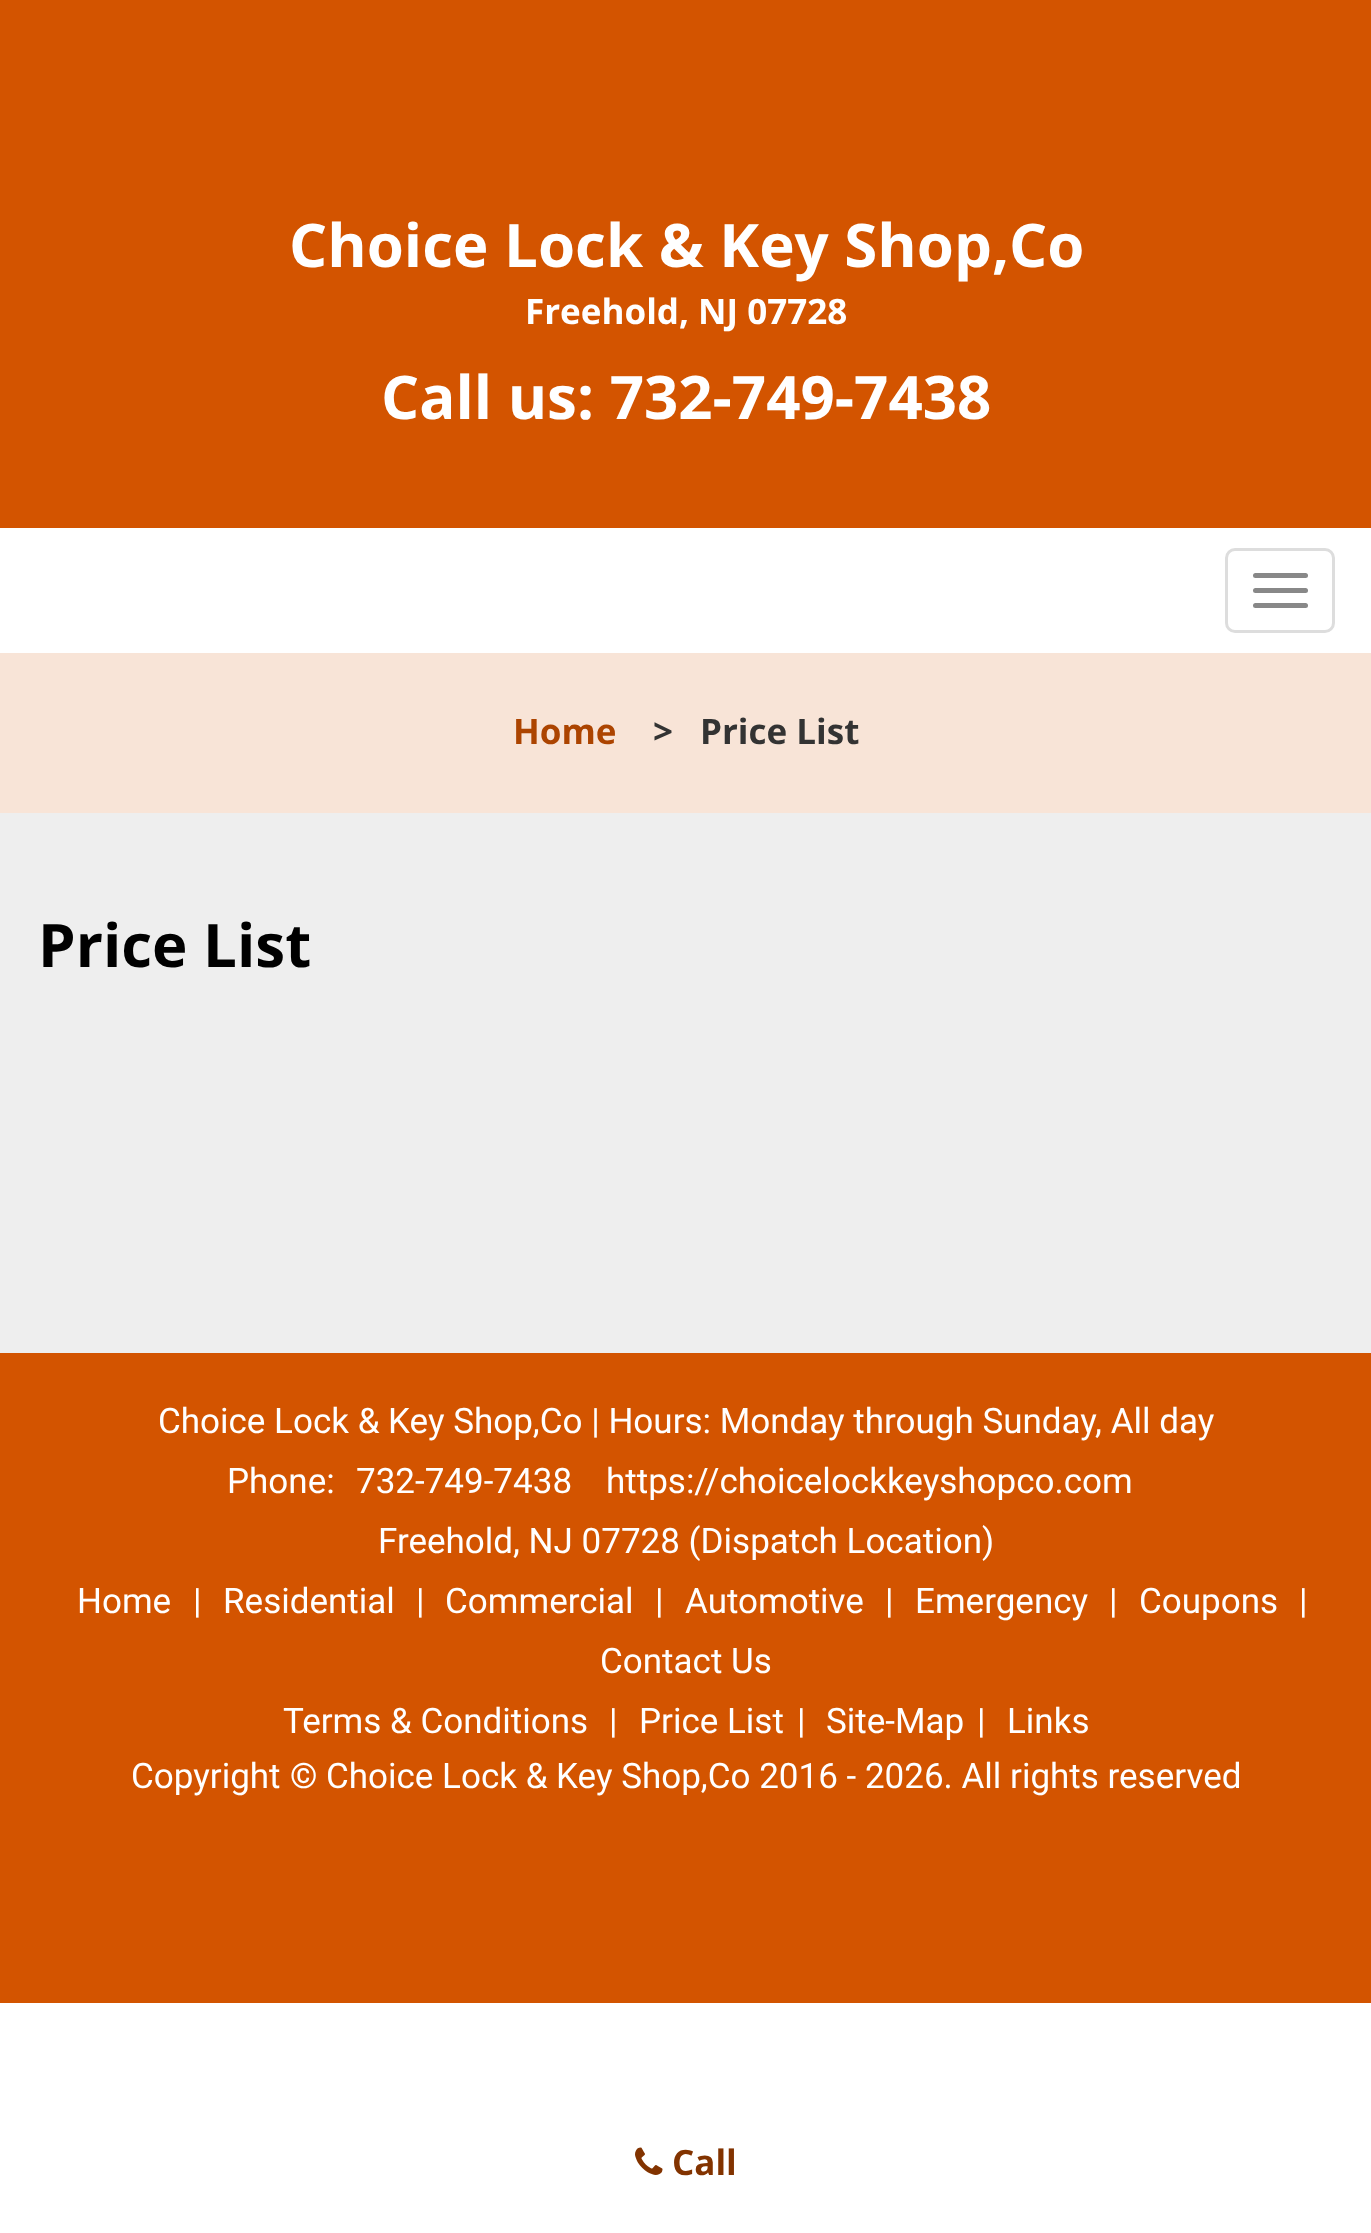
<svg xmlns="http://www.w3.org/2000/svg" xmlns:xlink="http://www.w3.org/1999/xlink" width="1371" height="2233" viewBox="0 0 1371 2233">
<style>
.cls-1{font:bold 60px Open Sans;fill:#ffffff}
.cls-2{font:bold 35px Open Sans;fill:#ffffff}
.cls-3{font:bold 35px Open Sans;fill:#ac4400}
.cls-4{font:bold 35px Open Sans;fill:#333333}
.cls-5{font:bold 60px Open Sans;fill:#000000}
.cls-6{font:35px Roboto;fill:#ffffff}
.cls-7{font:bold 35px Roboto;fill:#ffffff}
.cls-8{font:bold 35px Open Sans;fill:#823300}
</style>
<rect width="100%" height="100%" fill="#ffffff"/>
<rect fill="#d35400" x="0" y="0" width="1371" height="528"/>
<rect fill="none" stroke="#dddddd" stroke-width="3" x="1226.5" y="549.5" width="107" height="82" rx="8.5"/>
<rect fill="#888888" x="1253" y="573" width="55" height="5" rx="2.5"/>
<rect fill="#888888" x="1253" y="588" width="55" height="5" rx="2.5"/>
<rect fill="#888888" x="1253" y="603" width="55" height="5" rx="2.5"/>
<rect fill="#f8e4d7" x="0" y="653" width="1371" height="160"/>
<rect fill="#eeeeee" x="0" y="813" width="1371" height="540"/>
<rect fill="#d35400" x="0" y="1353" width="1371" height="650"/>
<image xlink:href="image0.png" x="635" y="2147" width="28" height="28"/>
<text class="cls-1" x="289" y="267">Choice Lock &amp; Key Shop,Co</text>
<text class="cls-2" x="525" y="324">Freehold, NJ 07728</text>
<text class="cls-1" x="381" y="419">Call us: 732-749-7438</text>
<text class="cls-3" x="513" y="744">Home</text>
<text class="cls-4" x="653" y="744">&gt;</text>
<text class="cls-4" x="700" y="744">Price List</text>
<text class="cls-5" x="38" y="967">Price List</text>
<text class="cls-6" x="158" y="1433">Choice Lock &amp; Key Shop,Co | Hours: Monday through Sunday, All day</text>
<text class="cls-6" x="227" y="1493">Phone:</text>
<text class="cls-6" x="356" y="1493">732-749-7438</text>
<text class="cls-6" x="606" y="1493">https://choicelockkeyshopco.com</text>
<text class="cls-6" x="378" y="1553">Freehold, NJ 07728 (Dispatch Location)</text>
<text class="cls-6" x="77" y="1613">Home</text>
<text class="cls-6" x="193" y="1613">|</text>
<text class="cls-6" x="223" y="1613">Residential</text>
<text class="cls-6" x="416" y="1613">|</text>
<text class="cls-6" x="445" y="1613">Commercial</text>
<text class="cls-6" x="655" y="1613">|</text>
<text class="cls-6" x="685" y="1613">Automotive</text>
<text class="cls-6" x="885" y="1613">|</text>
<text class="cls-6" x="915" y="1613">Emergency</text>
<text class="cls-6" x="1109" y="1613">|</text>
<text class="cls-6" x="1139" y="1613">Coupons</text>
<text class="cls-6" x="1299" y="1613">|</text>
<text class="cls-6" x="600" y="1673">Contact Us</text>
<text class="cls-6" x="283" y="1733">Terms &amp; Conditions</text>
<text class="cls-6" x="609" y="1733">|</text>
<text class="cls-6" x="639" y="1733">Price List</text>
<text class="cls-6" x="797" y="1733">|</text>
<text class="cls-6" x="826" y="1733">Site-Map</text>
<text class="cls-6" x="977" y="1733">|</text>
<text class="cls-6" x="1007" y="1733">Links</text>
<text class="cls-6" x="131" y="1788">Copyright</text>
<text class="cls-7" x="290" y="1788">©</text>
<text class="cls-6" x="326" y="1788">Choice Lock &amp; Key Shop,Co 2016 - 2026. All rights reserved</text>
<text class="cls-8" x="672" y="2175">Call</text>
</svg>
